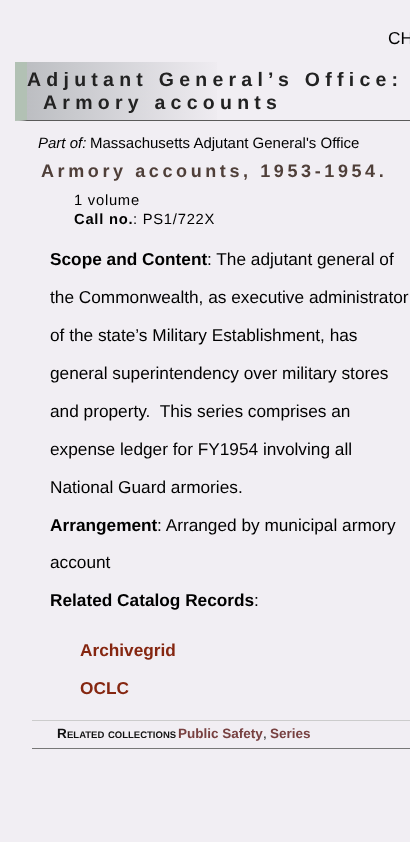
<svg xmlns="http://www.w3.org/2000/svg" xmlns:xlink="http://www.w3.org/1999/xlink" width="410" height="842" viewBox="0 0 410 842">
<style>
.cls-1{font:17.25px Liberation Sans;fill:#000000}
.cls-2{font:bold 19.5px Liberation Sans;letter-spacing:5.25px;fill:#222222}
.cls-3{font:italic 15px Liberation Sans;fill:#000000}
.cls-4{font:15px Liberation Sans;fill:#000000}
.cls-5{font:bold 18px Liberation Sans;letter-spacing:3.6px;fill:#4f3f39}
.cls-6{font:14.75px Liberation Sans;letter-spacing:0.75px;fill:#000000}
.cls-7{font:bold 14.75px Liberation Sans;letter-spacing:0.75px;fill:#000000}
.cls-8{font:bold 17.25px Liberation Sans;fill:#000000}
.cls-9{font:bold 17.25px Liberation Sans;fill:#852610}
.cls-10{font:bold 13.5px Liberation Sans;fill:#111111}
.cls-11{font:bold 9.5px Liberation Sans;fill:#111111}
.cls-12{font:bold 13.5px Liberation Sans;fill:#774040}
.cls-13{font:13.5px Liberation Sans;fill:#111111}
</style>
<defs>
<linearGradient id="g1" gradientUnits="userSpaceOnUse" x1="27" y1="91" x2="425" y2="91"><stop offset="0" stop-color="#bcbec2"/><stop offset="0.5" stop-color="#f1eef3"/><stop offset="1" stop-color="#f1eef3"/></linearGradient>
</defs>
<rect width="100%" height="100%" fill="#f1eef3"/>
<rect fill="url(#g1)" x="27" y="62" width="190" height="58"/>
<path fill="#5a5a59" d="M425 121H15L27 120H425Z"/>
<path fill="#b2c1b4" d="M15 121V62H27V120Z"/>
<rect fill="#cccccc" x="32" y="720" width="378" height="1"/>
<rect fill="#777777" x="32" y="748" width="378" height="1"/>
<text class="cls-1" x="388" y="44">CH</text>
<text class="cls-2" x="27" y="86">Adjutant General’s Office:</text>
<text class="cls-2" x="43" y="109">Armory accounts</text>
<text class="cls-3" x="38" y="148">Part of:</text>
<text class="cls-4" x="90" y="148">Massachusetts Adjutant General's Office</text>
<text class="cls-5" x="41" y="177">Armory accounts, 1953-1954.</text>
<text class="cls-6" x="74" y="205">1 volume</text>
<text class="cls-7" x="74" y="224">Call no.</text>
<text class="cls-6" x="133" y="224">: PS1/722X</text>
<text class="cls-8" x="50" y="265">Scope and Content</text>
<text class="cls-1" x="207" y="265">: The adjutant general of</text>
<text class="cls-1" x="50" y="303">the Commonwealth, as executive administrator</text>
<text class="cls-1" x="50" y="341">of the state’s Military Establishment, has</text>
<text class="cls-1" x="50" y="379">general superintendency over military stores</text>
<text class="cls-1" xml:space="preserve" x="50" y="417">and property.  This series comprises an</text>
<text class="cls-1" x="50" y="455">expense ledger for FY1954 involving all</text>
<text class="cls-1" x="50" y="493">National Guard armories.</text>
<text class="cls-8" x="50" y="531">Arrangement</text>
<text class="cls-1" x="157" y="531">: Arranged by municipal armory</text>
<text class="cls-1" x="50" y="568">account</text>
<text class="cls-8" x="50" y="606">Related Catalog Records</text>
<text class="cls-1" x="254" y="606">:</text>
<text class="cls-9" x="80" y="656">Archivegrid</text>
<text class="cls-9" x="80" y="694">OCLC</text>
<text class="cls-10" x="57" y="738">R</text>
<text class="cls-11" x="67" y="738">ELATED</text>
<text class="cls-11" x="108" y="738">COLLECTIONS</text>
<text class="cls-12" x="178" y="738">Public Safety</text>
<text class="cls-13" x="263" y="738">,</text>
<text class="cls-12" x="270" y="738">Series</text>
</svg>
